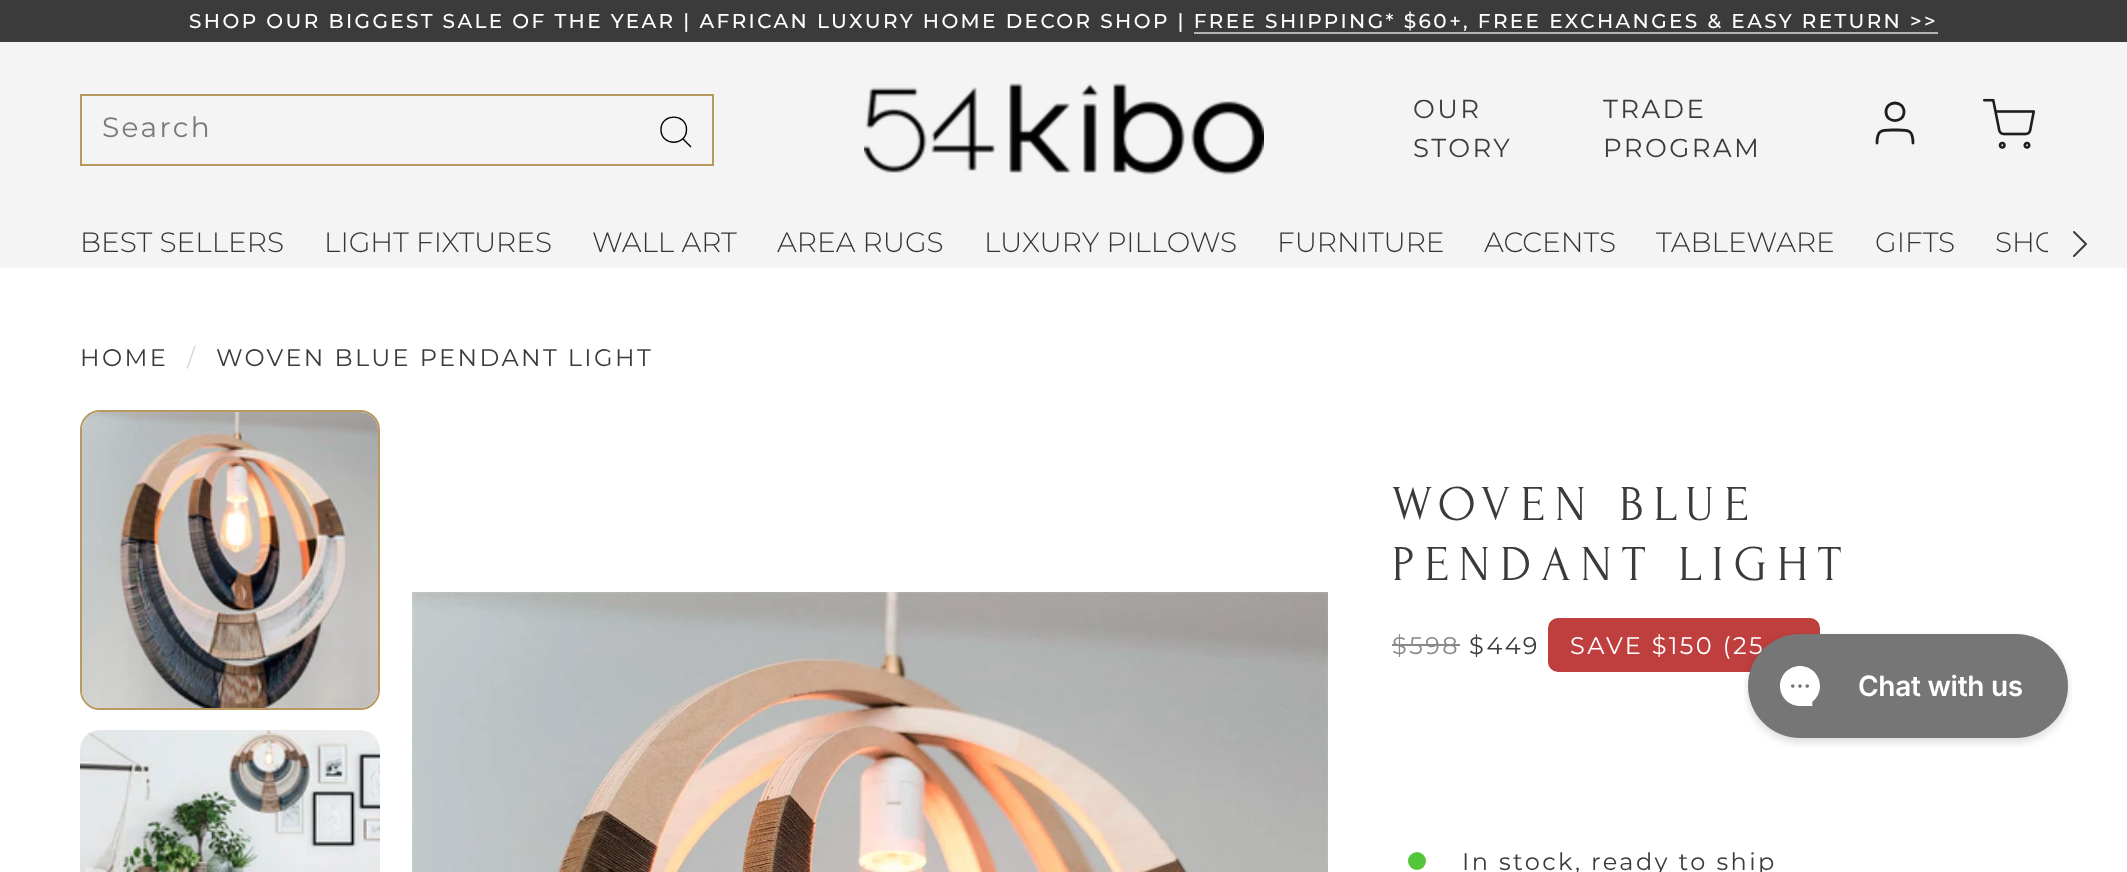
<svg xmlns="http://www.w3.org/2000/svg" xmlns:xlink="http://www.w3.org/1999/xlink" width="2127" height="872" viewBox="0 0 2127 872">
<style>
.cls-1{font:500 20px Montserrat;letter-spacing:2.4px;fill:#ffffff}
.cls-2{font:28px Montserrat;letter-spacing:2.4px;fill:#7a7a7a}
.cls-3{font:26px Montserrat;letter-spacing:2.4px;fill:#3b3b3b}
.cls-4{font:300 28px Montserrat;fill:#333333}
.cls-5{font:24px Montserrat;letter-spacing:2.4px;fill:#3b3b3b}
.cls-6{font:24px Montserrat;letter-spacing:2.4px;fill:#d8d8d8}
.cls-7{font:50px Forum;letter-spacing:10px;fill:#3b3b3b}
.cls-8{font:24px Montserrat;letter-spacing:2.4px;fill:#898989}
.cls-9{font:24px Montserrat;letter-spacing:2.4px;fill:#ffffff}
</style>
<defs>
<clipPath id="clip1"><rect x="80" y="216" width="1968" height="52"/></clipPath>
</defs>
<rect width="100%" height="100%" fill="#ffffff"/>
<rect fill="#3b3b3b" x="0" y="0" width="2127" height="42"/>
<rect fill="#b3b3b3" x="1194" y="32" width="744" height="2"/>
<rect fill="#f4f4f4" x="0" y="42" width="2127" height="226"/>
<rect fill="none" stroke="#b79961" stroke-width="2" x="81" y="95" width="632" height="70"/>
<path fill="none" stroke="#000000" stroke-width="1.4" d="M686.5 129.5C686.5 146.5 661 146.5 661 129.5C661 113 686.5 113 686.5 129.5ZM691 147L683 139"/>
<image xlink:href="image0.png" x="864" y="83" width="400" height="92"/>
<path fill="none" stroke="#1e1e1e" stroke-width="2.8" stroke-linecap="round" stroke-linejoin="round" d="M1913 143C1913 129 1908 130 1895 130C1882 130 1877 129 1877 143M1904 112C1904 123.5 1886 123.5 1886 112C1886 100 1904 100 1904 112Z"/>
<image xlink:href="image1.png" x="1983" y="98" width="52" height="51"/>
<path fill="none" stroke="#3b3b3b" stroke-width="2" stroke-linecap="round" stroke-linejoin="round" d="M2074 256L2086 244L2074 232"/>
<rect fill="none" stroke="#b79961" stroke-width="2" x="81" y="411" width="298" height="298" rx="19"/>
<image xlink:href="image2.png" x="82" y="412" width="296" height="296"/>
<image xlink:href="image3.png" x="80" y="730" width="300" height="142"/>
<image xlink:href="image4.png" x="412" y="592" width="916" height="280"/>
<rect fill="#898989" x="1392" y="644" width="68" height="2"/>
<rect fill="#bf3e3e" stroke="#bf3e3e" stroke-width="2" x="1549" y="619" width="270" height="52" rx="9"/>
<circle fill="#54c63a" cx="1417" cy="861" r="9"/>
<text class="cls-1" x="189" y="28">SHOP OUR BIGGEST SALE OF THE YEAR | AFRICAN LUXURY HOME DECOR SHOP | FREE SHIPPING* $60+, FREE EXCHANGES &amp; EASY RETURN &gt;&gt;</text>
<text class="cls-2" x="102" y="137">Search</text>
<text class="cls-3"><tspan x="1413" y="118">OUR</tspan><tspan x="1413" y="157">STORY</tspan></text>
<text class="cls-3"><tspan x="1603" y="118">TRADE</tspan><tspan x="1603" y="157">PROGRAM</tspan></text>
<text class="cls-4" x="80" y="252">BEST SELLERS</text>
<text class="cls-4" x="324" y="252">LIGHT FIXTURES</text>
<text class="cls-4" x="592" y="252">WALL ART</text>
<text class="cls-4" x="777" y="252">AREA RUGS</text>
<text class="cls-4" x="984" y="252">LUXURY PILLOWS</text>
<text class="cls-4" x="1277" y="252">FURNITURE</text>
<text class="cls-4" x="1484" y="252">ACCENTS</text>
<text class="cls-4" x="1656" y="252">TABLEWARE</text>
<text class="cls-4" x="1875" y="252">GIFTS</text>
<g clip-path="url(#clip1)">
<text class="cls-4" x="1995" y="252">SHO</text>
</g>
<text class="cls-5" x="80" y="366">HOME</text>
<text class="cls-6" x="187" y="366">/</text>
<text class="cls-5" x="216" y="366">WOVEN BLUE PENDANT LIGHT</text>
<text class="cls-7"><tspan x="1392" y="520">WOVEN BLUE</tspan><tspan x="1392" y="580">PENDANT LIGHT</tspan></text>
<text class="cls-8" x="1392" y="654">$598</text>
<text class="cls-5" x="1469" y="654">$449</text>
<text class="cls-9" x="1570" y="654">SAVE $150 (25</text>
<text class="cls-5" x="1462" y="870">In stock, ready to ship</text>
<image xlink:href="image5.png" x="1744" y="633" width="328" height="114"/>
</svg>
